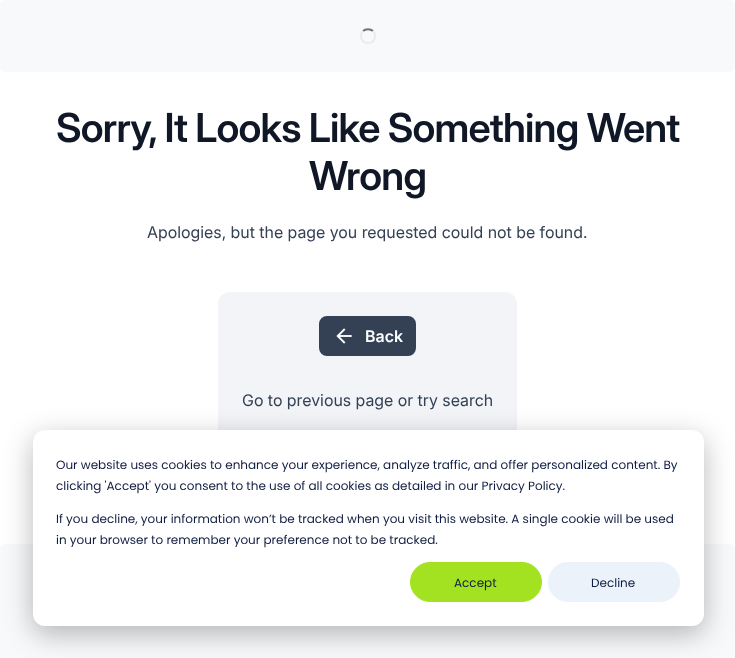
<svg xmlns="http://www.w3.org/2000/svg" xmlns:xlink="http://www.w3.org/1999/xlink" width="735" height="658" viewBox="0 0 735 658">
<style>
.cls-1{font:600 40px Inter;letter-spacing:-0.8px;fill:#101828}
.cls-2{font:16px Inter;fill:#344054}
.cls-3{font:600 16px 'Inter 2';fill:#ffffff}
.cls-4{font:12px Poppins;fill:#101d42}
</style>
<rect width="100%" height="100%" fill="#ffffff"/>
<rect fill="#f8f9fa" x="0" y="0" width="735" height="72" rx="6"/>
<path fill="none" stroke="#6c757d" stroke-width="2" d="M363 31C365.5 28.5 370.5 28.5 373 31"/>
<path fill="none" stroke="#e9ecef" stroke-width="2" d="M373 31C374.5 32.5 375.5 35 375 37.5C373 45.5 361 44.5 361 36C361 34 361.5 32.5 363 31"/>
<rect fill="#f2f4f8" x="218" y="292" width="299" height="220" rx="12"/>
<rect fill="#344054" stroke="#344054" stroke-width="2" x="320" y="317" width="95" height="38" rx="7"/>
<image xlink:href="image0.png" x="336" y="328" width="16" height="16"/>
<rect fill="#f8f9fa" x="0" y="544" width="735" height="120" rx="6"/>
<rect fill="#000000" fill-opacity="0.28" filter="blur(14px)" x="33" y="438" width="671" height="196" rx="12"/>
<rect fill="#ffffff" x="33" y="430" width="671" height="196" rx="12"/>
<rect fill="#a3e220" stroke="#a3e220" x="410.5" y="562.5" width="131" height="39" rx="19.5"/>
<rect fill="#ebf2fa" stroke="#ebf2fa" x="548.5" y="562.5" width="131" height="39" rx="19.5"/>
<text class="cls-1" x="56" y="142">Sorry, It Looks Like Something Went</text>
<text class="cls-1" x="309" y="190">Wrong</text>
<text class="cls-2" x="147" y="238">Apologies, but the page you requested could not be found.</text>
<text class="cls-3" x="365" y="342">Back</text>
<text class="cls-2" x="242" y="406">Go to previous page or try search</text>
<text class="cls-4"><tspan x="56" y="469">Our website uses cookies to enhance your experience, analyze traffic, and offer personalized content. By</tspan><tspan x="56" y="490">clicking 'Accept' you consent to the use of all cookies as detailed in our Privacy Policy.</tspan></text>
<text class="cls-4"><tspan x="56" y="523">If you decline, your information won’t be tracked when you visit this website. A single cookie will be used</tspan><tspan x="56" y="544">in your browser to remember your preference not to be tracked.</tspan></text>
<text class="cls-4" x="454" y="587">Accept</text>
<text class="cls-4" x="591" y="587">Decline</text>
</svg>
